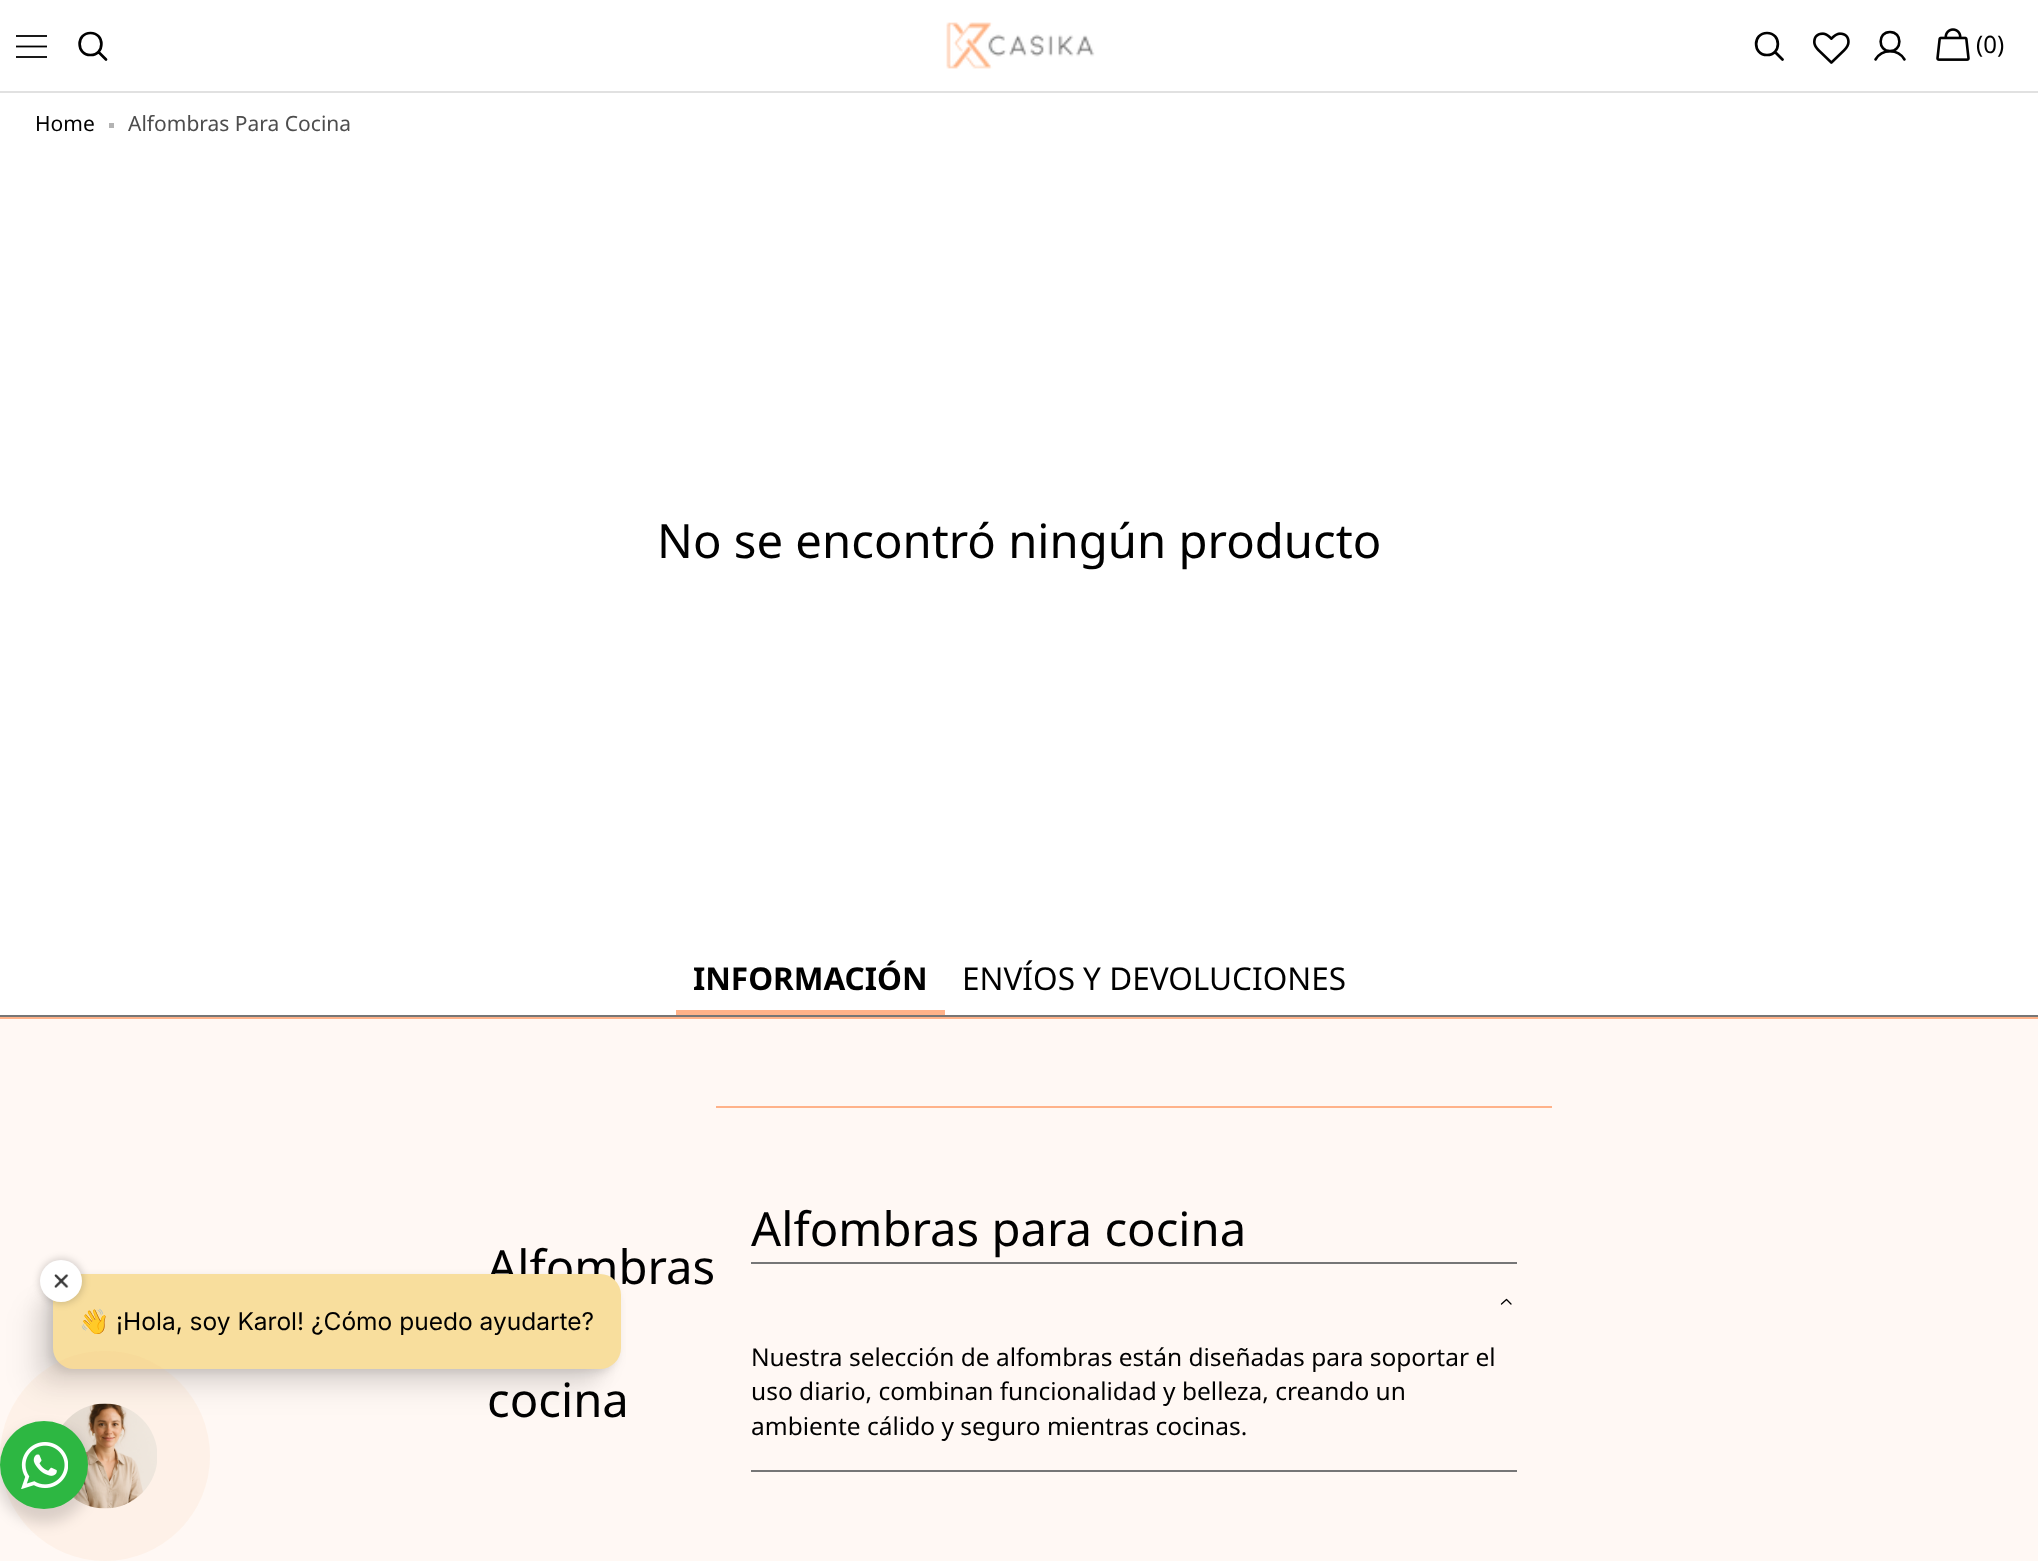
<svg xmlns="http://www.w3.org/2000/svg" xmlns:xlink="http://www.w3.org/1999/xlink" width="2038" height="1561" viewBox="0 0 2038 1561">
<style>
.cls-1{font:24px Noto Sans;fill:#000000}
.cls-2{font:21px Noto Sans;fill:#000000}
.cls-3{font:21px Noto Sans;fill:#4d4d4d}
.cls-4{font:47.25px Noto Sans;fill:#000000}
.cls-5{font:bold 31.5px Noto Sans;fill:#000000}
.cls-6{font:31.5px Noto Sans;fill:#000000}
.cls-7{font:24.5px Inter;fill:#000000}
.cls-8{font:24.5px Noto Color Emoji;fill:#000000}
.cls-9{font:24.5px Noto Sans;fill:#000000}
</style>
<rect width="100%" height="100%" fill="#ffffff"/>
<rect fill="#1a1a1a" x="16" y="35" width="31" height="2"/>
<path fill="none" stroke="#000000" stroke-width="1.8" d="M16 46.5H47"/>
<rect fill="#1a1a1a" x="16" y="56" width="31" height="2"/>
<path fill="none" stroke="#000000" stroke-width="2.7" stroke-linecap="round" stroke-linejoin="round" d="M90.5 55C105 55 105 33 90.5 33C76 33 76 55 90.5 55ZM98.5 52L106 59.5"/>
<image xlink:href="image0.png" x="946" y="22" width="149" height="47"/>
<path fill="none" stroke="#000000" stroke-width="2.7" stroke-linecap="round" stroke-linejoin="round" d="M1767 55C1781.5 55 1781.5 33 1767 33C1752.5 33 1752.5 55 1767 55ZM1775 52L1782.5 59.5"/>
<image xlink:href="image1.png" x="1813" y="32" width="37" height="32"/>
<path fill="none" stroke="#000000" stroke-width="2.6" d="M1890 51C1902.5 51 1902.5 32 1890 32C1877.5 32 1877.5 51 1890 51Z"/>
<path fill="none" stroke="#000000" stroke-width="2.6" stroke-linecap="round" stroke-linejoin="round" d="M1875.5 59.5C1882 48.5 1898 48.5 1904.5 59.5"/>
<image xlink:href="image2.png" x="1936" y="28" width="34" height="33"/>
<rect fill="#e1e1e1" x="0" y="91" width="2038" height="2"/>
<rect fill="#b3b3b3" x="109" y="123" width="5" height="5"/>
<rect fill="#fff8f4" x="0" y="1019" width="2038" height="542"/>
<rect fill="#000000" fill-opacity="0.1" filter="blur(4.5px)" x="49" y="1278" width="569" height="94" rx="21"/>
<rect fill="#000000" fill-opacity="0.09" filter="blur(9px)" x="40" y="1286" width="569" height="95" rx="21"/>
<rect fill="#000000" fill-opacity="0.05" filter="blur(11.5px)" x="26" y="1300" width="569" height="95" rx="21"/>
<rect fill="#767676" x="0" y="1015" width="2038" height="2"/>
<rect fill="#ffb289" x="676" y="1010" width="269" height="5"/>
<rect fill="#ffb289" x="0" y="1017" width="2038" height="2"/>
<rect fill="#ffb289" x="716" y="1106" width="836" height="2"/>
<rect fill="#767676" x="751" y="1262" width="766" height="2"/>
<rect fill="#767676" x="751" y="1470" width="766" height="2"/>
<path fill="none" stroke="#000000" stroke-width="1.3" stroke-linecap="round" stroke-linejoin="round" d="M1501.5 1304L1506.5 1299.5L1511 1304"/>
<image xlink:href="image4.png" x="62" y="1403" width="95" height="106"/>
<text class="cls-1" x="1976" y="53">(0)</text>
<text class="cls-2" x="35" y="131">Home</text>
<text class="cls-3" x="128" y="131">Alfombras Para Cocina</text>
<text class="cls-4" x="657" y="558">No se encontró ningún producto</text>
<text class="cls-5" x="693" y="990">INFORMACIÓN</text>
<text class="cls-6" x="962" y="990">ENVÍOS Y DEVOLUCIONES</text>
<text class="cls-4" x="487" y="1284">Alfombras</text>
<rect fill="#f8de9d" x="53" y="1274" width="568" height="95" rx="21"/>
<rect fill="#000000" fill-opacity="0.15" filter="blur(3.5px)" x="39" y="1258" width="45" height="46" rx="22.5"/>
<circle fill="#ffffff" cx="61" cy="1281" r="21"/>
<image xlink:href="image3.png" x="54" y="1274" width="15" height="14"/>
<text class="cls-7" x="116" y="1330">¡Hola, soy Karol! ¿Cómo puedo ayudarte?</text>
<text class="cls-8" x="79" y="1330">👋</text>
<text class="cls-4" x="487" y="1417">cocina</text>
<text class="cls-4" x="751" y="1246">Alfombras para cocina</text>
<text class="cls-9"><tspan x="751" y="1366">Nuestra selección de alfombras están diseñadas para soportar el</tspan><tspan x="751" y="1400">uso diario, combinan funcionalidad y belleza, creando un</tspan><tspan x="751" y="1435">ambiente cálido y seguro mientras cocinas.</tspan></text>
<circle fill="#f5bc7b" fill-opacity="0.1" cx="105" cy="1456" r="105"/>
<rect fill="#000000" fill-opacity="0.14" filter="blur(7px)" x="-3" y="1428" width="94" height="95" rx="47"/>
<circle fill="#2db742" cx="44" cy="1465" r="44"/>
<image xlink:href="image5.png" x="21" y="1442" width="47" height="47"/>
</svg>
